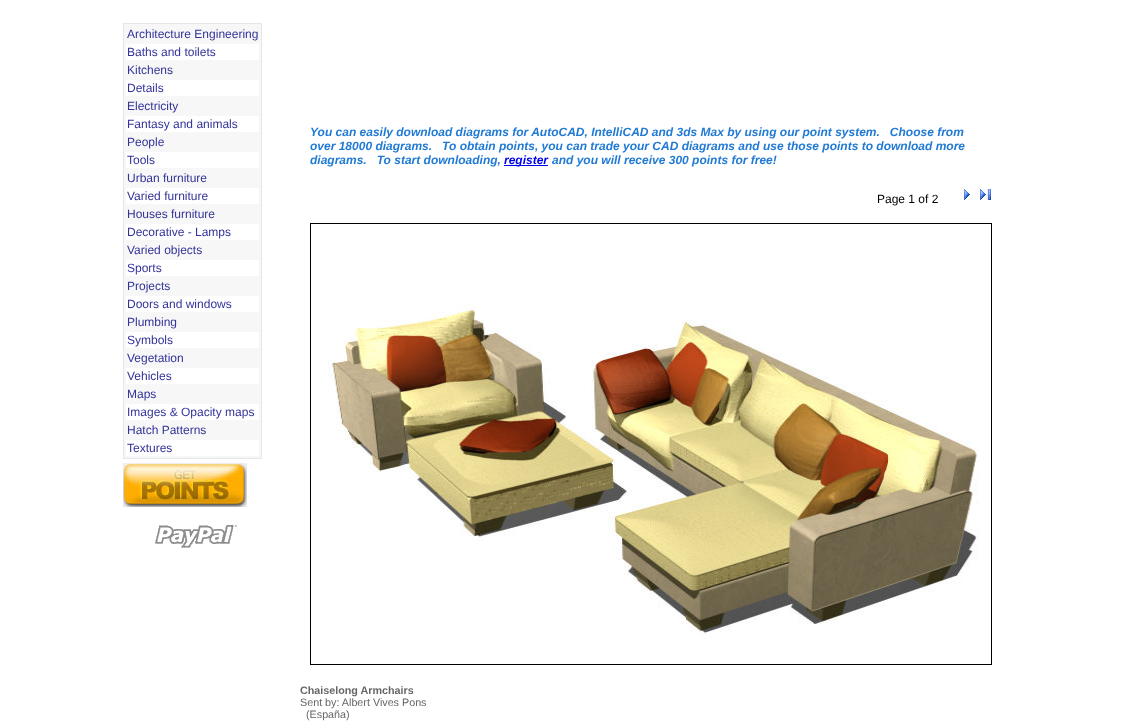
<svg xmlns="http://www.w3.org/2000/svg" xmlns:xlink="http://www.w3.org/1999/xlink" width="1148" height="725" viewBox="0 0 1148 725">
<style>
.cls-1{font:12px Liberation Sans;fill:#333399}
.cls-2{font:italic bold 12px Liberation Sans;fill:#217ad3}
.cls-3{font:italic bold 12px Liberation Sans;fill:#0000ee}
.cls-4{font:12px Liberation Sans;fill:#000000}
.cls-5{font:bold 10.75px Liberation Sans;fill:#666666}
.cls-6{font:10.75px Liberation Sans;fill:#666666}
</style>
<rect width="100%" height="100%" fill="#ffffff"/>
<rect fill="#f7f7f7" stroke="#e6e6e6" x="123.5" y="23.5" width="138" height="435"/>
<rect fill="#ffffff" x="126" y="44" width="133" height="16"/>
<rect fill="#ffffff" x="126" y="80" width="133" height="16"/>
<rect fill="#ffffff" x="126" y="116" width="133" height="16"/>
<rect fill="#ffffff" x="126" y="152" width="133" height="16"/>
<rect fill="#ffffff" x="126" y="188" width="133" height="16"/>
<rect fill="#ffffff" x="126" y="224" width="133" height="16"/>
<rect fill="#ffffff" x="126" y="260" width="133" height="16"/>
<rect fill="#ffffff" x="126" y="296" width="133" height="16"/>
<rect fill="#ffffff" x="126" y="332" width="133" height="16"/>
<rect fill="#ffffff" x="126" y="368" width="133" height="16"/>
<rect fill="#ffffff" x="126" y="404" width="133" height="16"/>
<rect fill="#ffffff" x="126" y="440" width="133" height="16"/>
<image xlink:href="image0.png" x="123" y="463" width="124" height="44"/>
<image xlink:href="image1.png" x="155" y="525" width="82" height="23"/>
<rect fill="#0000ee" x="504" y="165" width="44" height="1"/>
<image xlink:href="image2.png" x="964" y="189" width="6" height="11"/>
<image xlink:href="image3.png" x="980" y="189" width="11" height="11"/>
<rect fill="none" stroke="#000000" x="310.5" y="223.5" width="681" height="441"/>
<image xlink:href="image4.png" x="328" y="304" width="651" height="335"/>
<text class="cls-1"><tspan x="127" y="38">Architecture Engineering</tspan><tspan x="127" y="56">Baths and toilets</tspan><tspan x="127" y="74">Kitchens</tspan><tspan x="127" y="92">Details</tspan><tspan x="127" y="110">Electricity</tspan><tspan x="127" y="128">Fantasy and animals</tspan><tspan x="127" y="146">People</tspan><tspan x="127" y="164">Tools</tspan><tspan x="127" y="182">Urban furniture</tspan><tspan x="127" y="200">Varied furniture</tspan><tspan x="127" y="218">Houses furniture</tspan><tspan x="127" y="236">Decorative - Lamps</tspan><tspan x="127" y="254">Varied objects</tspan><tspan x="127" y="272">Sports</tspan><tspan x="127" y="290">Projects</tspan><tspan x="127" y="308">Doors and windows</tspan><tspan x="127" y="326">Plumbing</tspan><tspan x="127" y="344">Symbols</tspan><tspan x="127" y="362">Vegetation</tspan><tspan x="127" y="380">Vehicles</tspan><tspan x="127" y="398">Maps</tspan><tspan x="127" y="416">Images &amp; Opacity maps</tspan><tspan x="127" y="434">Hatch Patterns</tspan><tspan x="127" y="452">Textures</tspan></text>
<text class="cls-2" xml:space="preserve"><tspan x="310" y="136">You can easily download diagrams for AutoCAD, IntelliCAD and 3ds Max by using our point system.   Choose from</tspan><tspan x="310" y="150">over 18000 diagrams.   To obtain points, you can trade your CAD diagrams and use those points to download more</tspan><tspan x="310" y="164">diagrams.   To start downloading,</tspan></text>
<text class="cls-3" x="504" y="164">register</text>
<text class="cls-2" x="552" y="164">and you will receive 300 points for free!</text>
<text class="cls-4" x="877" y="203">Page 1 of 2</text>
<text class="cls-5" x="300" y="694">Chaiselong Armchairs</text>
<text class="cls-6" x="300" y="706">Sent by: Albert Vives Pons</text>
<text class="cls-6" x="306" y="718">(España)</text>
</svg>
